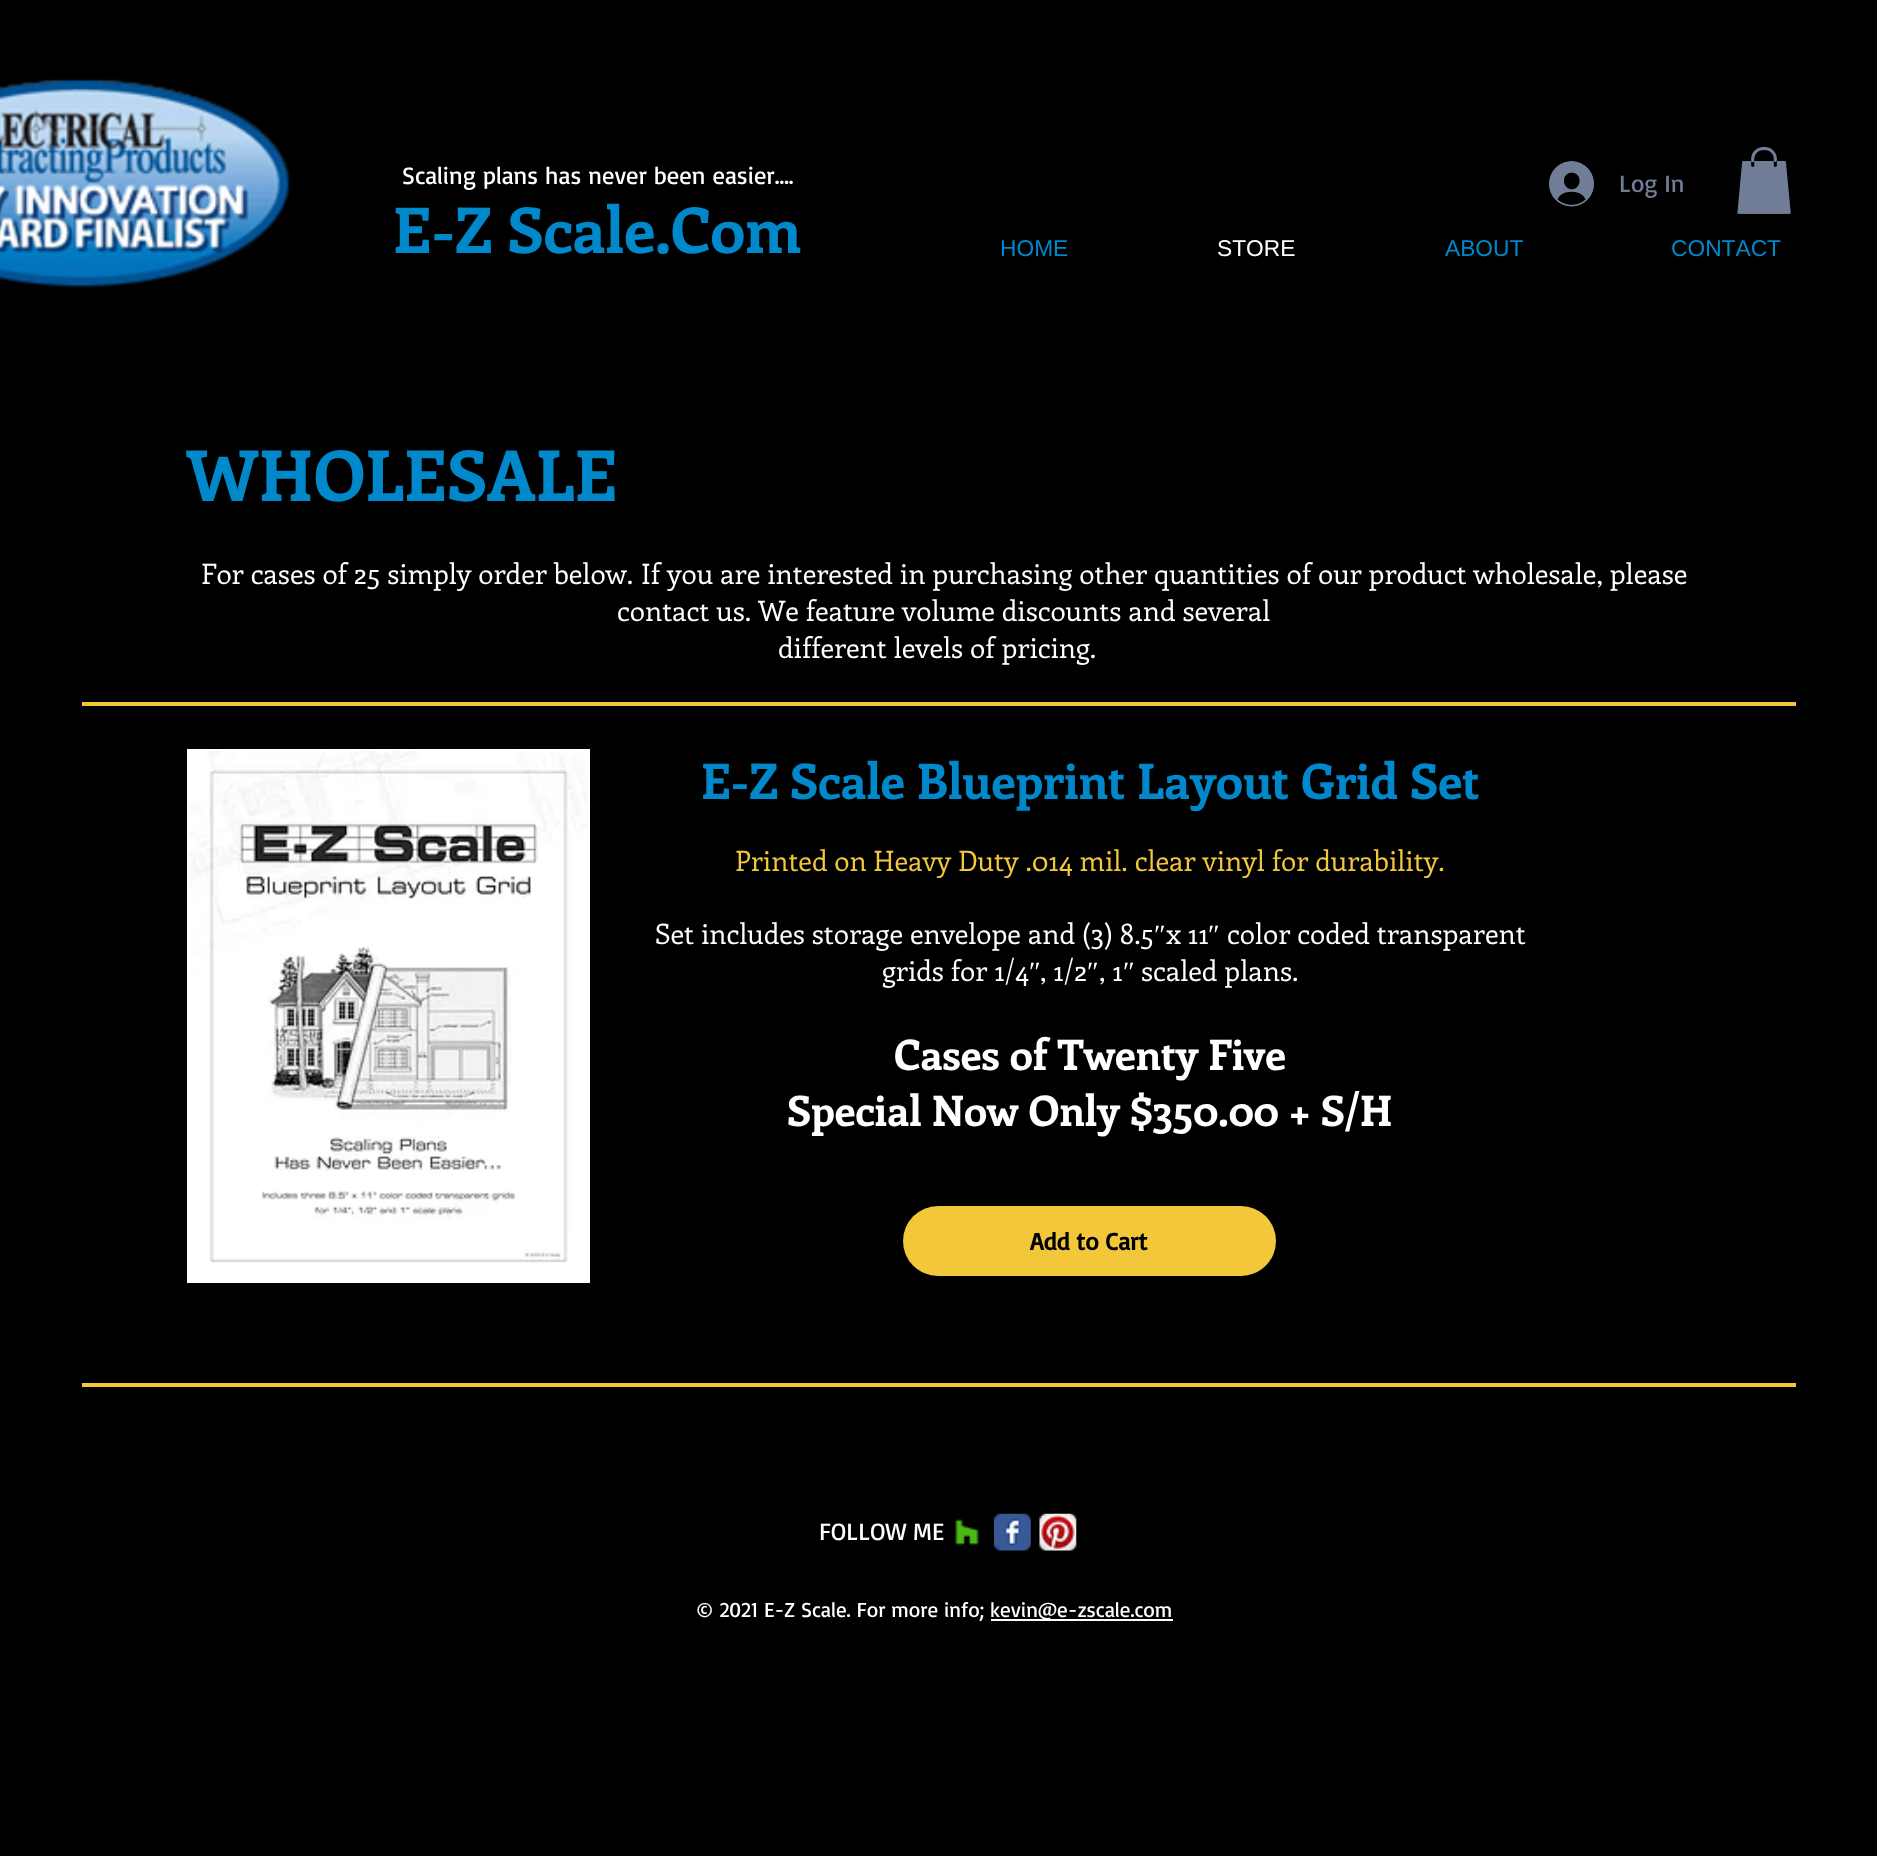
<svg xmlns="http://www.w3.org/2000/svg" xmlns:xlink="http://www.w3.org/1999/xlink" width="1877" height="1856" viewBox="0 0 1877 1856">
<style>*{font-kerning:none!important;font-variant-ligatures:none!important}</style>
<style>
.cls-1{font:24.5px Basic;fill:#ffffff}
.cls-2{font:bold 63px Enriqueta;fill:#0088cb}
.cls-3{font:22.75px Liberation Sans;fill:#0088cb}
.cls-4{font:22.75px Liberation Sans;fill:#ffffff}
.cls-5{font:24.5px Basic;fill:#717d97}
.cls-6{font:bold 70px Enriqueta;fill:#0088cb}
.cls-7{font:28px Enriqueta;fill:#ffffff}
.cls-8{font:bold 49px Enriqueta;fill:#0088cb}
.cls-9{font:28px Enriqueta;fill:#f2c73a}
.cls-10{font:28px Liberation Serif;fill:#ffffff}
.cls-11{font:bold 42px Enriqueta;fill:#ffffff}
.cls-12{font:bold 24.5px Basic;fill:#000000}
.cls-13{font:21px Basic;fill:#ffffff}
</style>
<rect width="100%" height="100%" fill="#000000"/>
<image xlink:href="image0.png" x="1737" y="147" width="54" height="67"/>
<image xlink:href="image1.png" x="0" y="78" width="290" height="210"/>
<image xlink:href="image2.png" x="1549" y="161" width="45" height="46"/>
<rect fill="#f2c73a" x="82" y="702" width="1714" height="4"/>
<rect fill="#ffffff" x="187" y="749" width="403" height="534"/>
<image xlink:href="image3.png" x="189" y="751" width="399" height="512"/>
<rect fill="#f2c73a" x="903" y="1206" width="373" height="70" rx="35"/>
<rect fill="#f2c73a" x="82" y="1383" width="1714" height="4"/>
<image xlink:href="image4.png" x="955" y="1518" width="24" height="28"/>
<image xlink:href="image5.png" x="994" y="1513" width="37" height="38"/>
<image xlink:href="image6.png" x="1039" y="1513" width="38" height="38"/>
<rect fill="#ffffff" x="991" y="1619" width="182" height="2"/>
<text class="cls-1" x="402" y="184">Scaling plans has never been easier....</text>
<text class="cls-2" x="393" y="253">E-Z Scale.Com</text>
<text class="cls-3" x="1000" y="256">HOME</text>
<text class="cls-4" x="1217" y="256">STORE</text>
<text class="cls-3" x="1445" y="256">ABOUT</text>
<text class="cls-3" x="1671" y="256">CONTACT</text>
<text class="cls-5" x="1619" y="192">Log In</text>
<text class="cls-6" x="186" y="501">WHOLESALE</text>
<text class="cls-7" x="201" y="584">For cases of 25 simply order below.</text>
<text class="cls-7" x="641" y="584">If you are interested in purchasing other quantities of our product wholesale, please</text>
<text class="cls-7" x="617" y="621">contact us. We feature volume discounts and several</text>
<text class="cls-7" x="778" y="658">different levels of pricing.</text>
<text class="cls-8" x="701" y="799">E-Z Scale Blueprint Layout Grid Set</text>
<text class="cls-9" x="735" y="871">Printed on Heavy Duty .014 mil. clear vinyl for durability.</text>
<text class="cls-7" x="655" y="944">Set includes storage envelope and (3) 8.5</text>
<text class="cls-10" x="1154" y="944">″</text>
<text class="cls-7" x="1166" y="944">x 11</text>
<text class="cls-10" x="1208" y="944">″</text>
<text class="cls-7" x="1227" y="944">color coded transparent</text>
<text class="cls-7" x="882" y="981">grids for 1/4</text>
<text class="cls-10" x="1029" y="981">″</text>
<text class="cls-7" x="1040" y="981">, 1/2</text>
<text class="cls-10" x="1087" y="981">″</text>
<text class="cls-7" x="1099" y="981">, 1</text>
<text class="cls-10" x="1123" y="981">″</text>
<text class="cls-7" x="1141" y="981">scaled plans.</text>
<text class="cls-11" x="894" y="1070">Cases of Twenty Five</text>
<text class="cls-11" x="787" y="1126">Special Now Only $350.00 + S/H</text>
<text class="cls-12" x="1030" y="1250">Add to Cart</text>
<text class="cls-1" x="819" y="1540">FOLLOW ME</text>
<text class="cls-13" x="696" y="1617">© 2021 E-Z Scale. For more info;</text>
<text class="cls-13" x="990" y="1617">kevin@e-zscale.com</text>
</svg>
